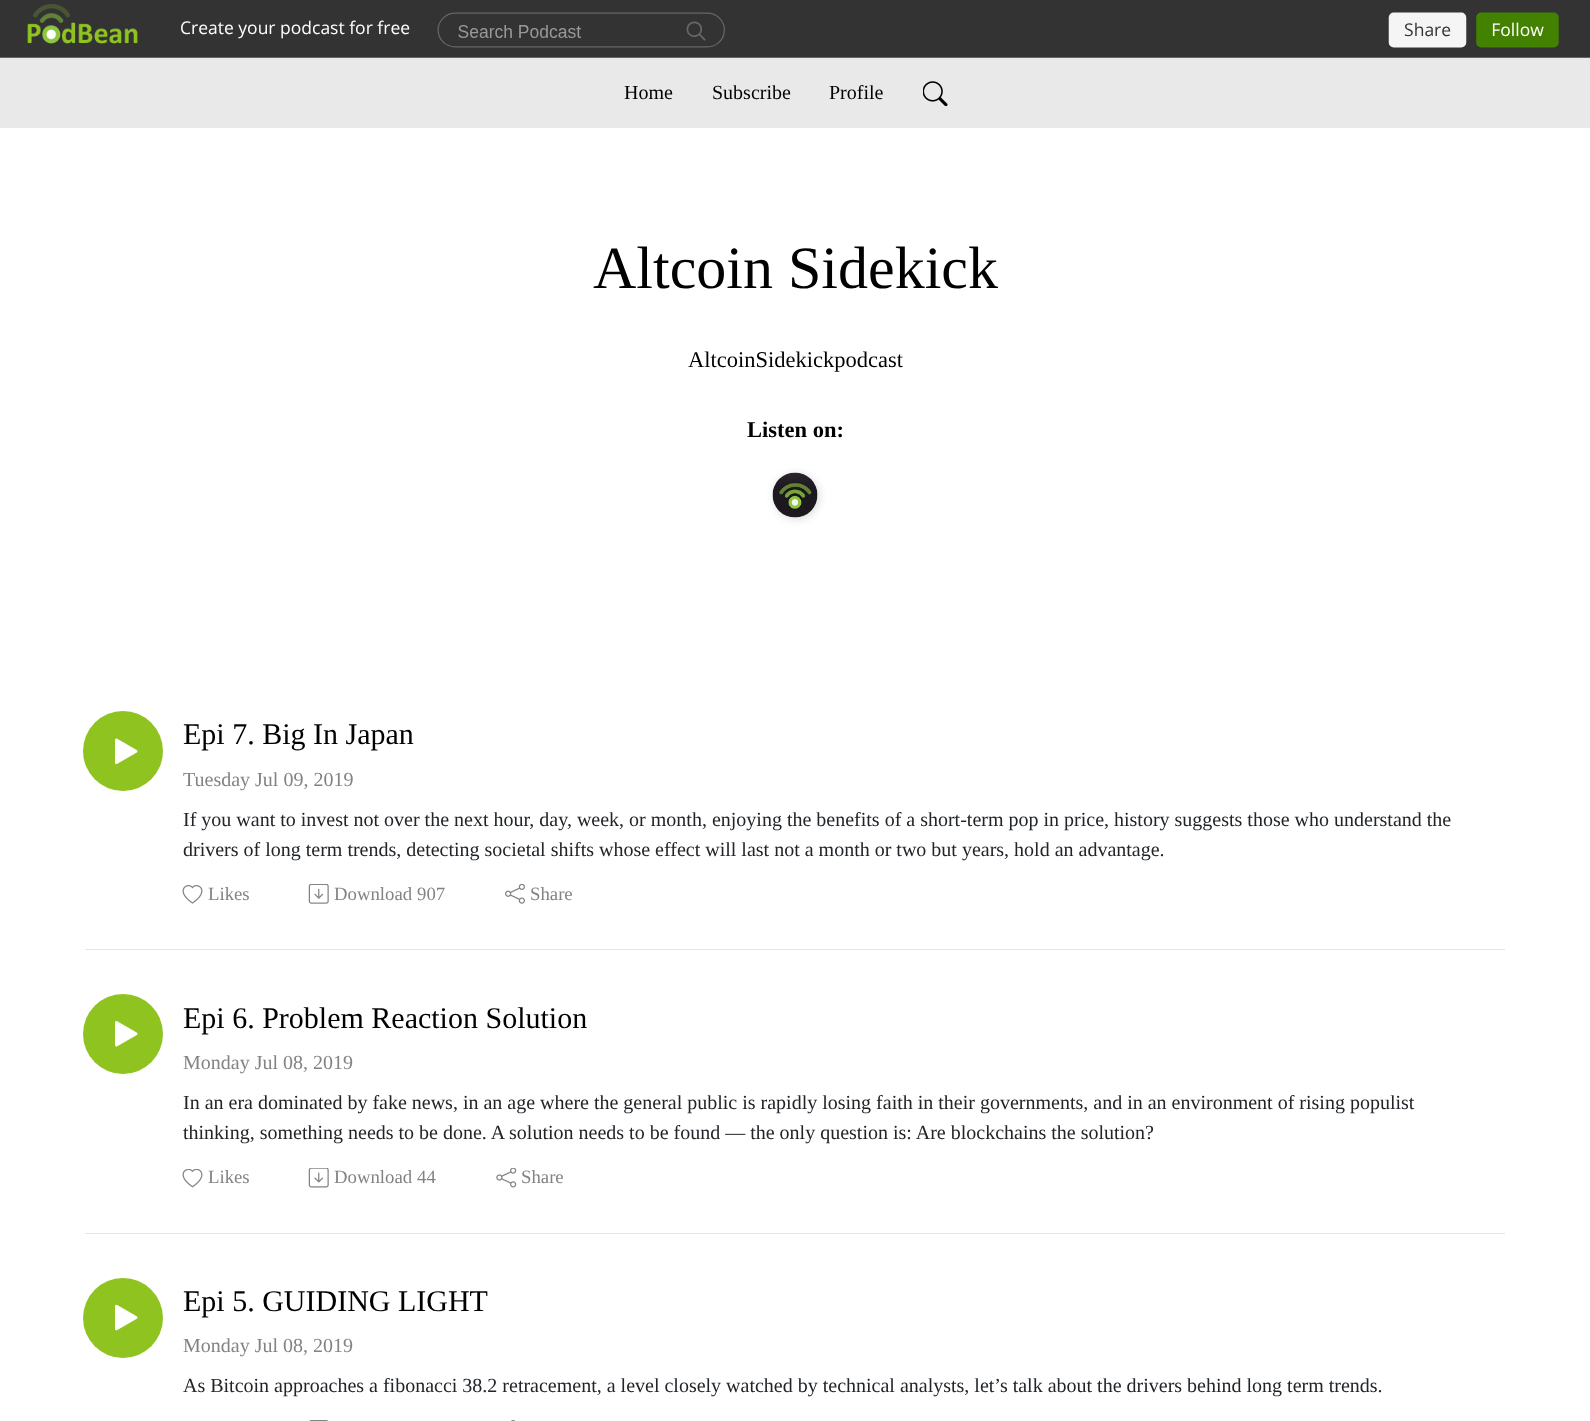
<svg xmlns="http://www.w3.org/2000/svg" xmlns:xlink="http://www.w3.org/1999/xlink" width="1590" height="1421" viewBox="0 0 1590 1421">
<style>
.cls-1{font:20px Liberation Serif;fill:#000000}
.cls-2{font:60px Liberation Serif;fill:#000000}
.cls-3{font:22.5px Liberation Serif;fill:#000000}
.cls-4{font:bold 22.5px Liberation Serif;fill:#000000}
.cls-5{font:30px Liberation Serif;fill:#000000}
.cls-6{font:20px Liberation Serif;fill:#838383}
.cls-7{font:20px Liberation Serif;fill:#212529}
.cls-8{font:18.75px Liberation Serif;fill:#838383}
</style>
<rect width="100%" height="100%" fill="#ffffff"/>
<rect fill="#333333" x="0" y="0" width="1590" height="4"/>
<image xlink:href="image0.png" x="0" y="4" width="1590" height="54"/>
<rect fill="#e9e9e9" x="0" y="58" width="1590" height="70"/>
<image xlink:href="image1.png" x="923" y="81" width="25" height="25"/>
<rect fill="#000000" fill-opacity="0.15" filter="blur(4px)" x="774" y="474" width="45" height="45" rx="22.5"/>
<image xlink:href="image2.png" x="772" y="472" width="46" height="46"/>
<rect fill="#e4e4e4" x="85" y="949" width="1420" height="1"/>
<circle fill="#8fc31f" cx="123" cy="751" r="40"/>
<image xlink:href="image3.png" x="115" y="738" width="23" height="26"/>
<image xlink:href="image4.png" x="182" y="885" width="21" height="19"/>
<image xlink:href="image5.png" x="308" y="884" width="21" height="20"/>
<image xlink:href="image6.png" x="505" y="884" width="20" height="20"/>
<rect fill="#e4e4e4" x="85" y="1233" width="1420" height="1"/>
<circle fill="#8fc31f" cx="123" cy="1034" r="40"/>
<image xlink:href="image7.png" x="115" y="1021" width="23" height="26"/>
<image xlink:href="image8.png" x="182" y="1169" width="21" height="19"/>
<image xlink:href="image9.png" x="308" y="1168" width="21" height="20"/>
<image xlink:href="image10.png" x="496" y="1168" width="21" height="20"/>
<circle fill="#8fc31f" cx="123" cy="1318" r="40"/>
<image xlink:href="image11.png" x="115" y="1304" width="23" height="27"/>
<image xlink:href="image12.png" x="309" y="1420" width="19" height="1"/>
<image xlink:href="image13.png" x="511" y="1420" width="5" height="1"/>
<text class="cls-1" x="624" y="99">Home</text>
<text class="cls-1" x="712" y="99">Subscribe</text>
<text class="cls-1" x="829" y="99">Profile</text>
<text class="cls-2" x="593" y="288">Altcoin Sidekick</text>
<text class="cls-3" x="688" y="367">AltcoinSidekickpodcast</text>
<text class="cls-4" x="747" y="437">Listen on:</text>
<text class="cls-5" x="183" y="744">Epi 7. Big In Japan</text>
<text class="cls-6" x="183" y="786">Tuesday Jul 09, 2019</text>
<text class="cls-7"><tspan x="183" y="826">If you want to invest not over the next hour, day, week, or month, enjoying the benefits of a short-term pop in price, history suggests those who understand the</tspan><tspan x="183" y="856">drivers of long term trends, detecting societal shifts whose effect will last not a month or two but years, hold an advantage.</tspan></text>
<text class="cls-8" x="208" y="900">Likes</text>
<text class="cls-8" x="334" y="900">Download</text>
<text class="cls-8" x="417" y="900">907</text>
<text class="cls-8" x="530" y="900">Share</text>
<text class="cls-5" x="183" y="1028">Epi 6. Problem Reaction Solution</text>
<text class="cls-6" x="183" y="1069">Monday Jul 08, 2019</text>
<text class="cls-7"><tspan x="183" y="1109">In an era dominated by fake news, in an age where the general public is rapidly losing faith in their governments, and in an environment of rising populist</tspan><tspan x="183" y="1139">thinking, something needs to be done. A solution needs to be found — the only question is: Are blockchains the solution?</tspan></text>
<text class="cls-8" x="208" y="1183">Likes</text>
<text class="cls-8" x="334" y="1183">Download</text>
<text class="cls-8" x="417" y="1183">44</text>
<text class="cls-8" x="521" y="1183">Share</text>
<text class="cls-5" x="183" y="1311">Epi 5. GUIDING LIGHT</text>
<text class="cls-6" x="183" y="1352">Monday Jul 08, 2019</text>
<text class="cls-7" x="183" y="1392">As Bitcoin approaches a fibonacci 38.2 retracement, a level closely watched by technical analysts, let’s talk about the drivers behind long term trends.</text>
</svg>
